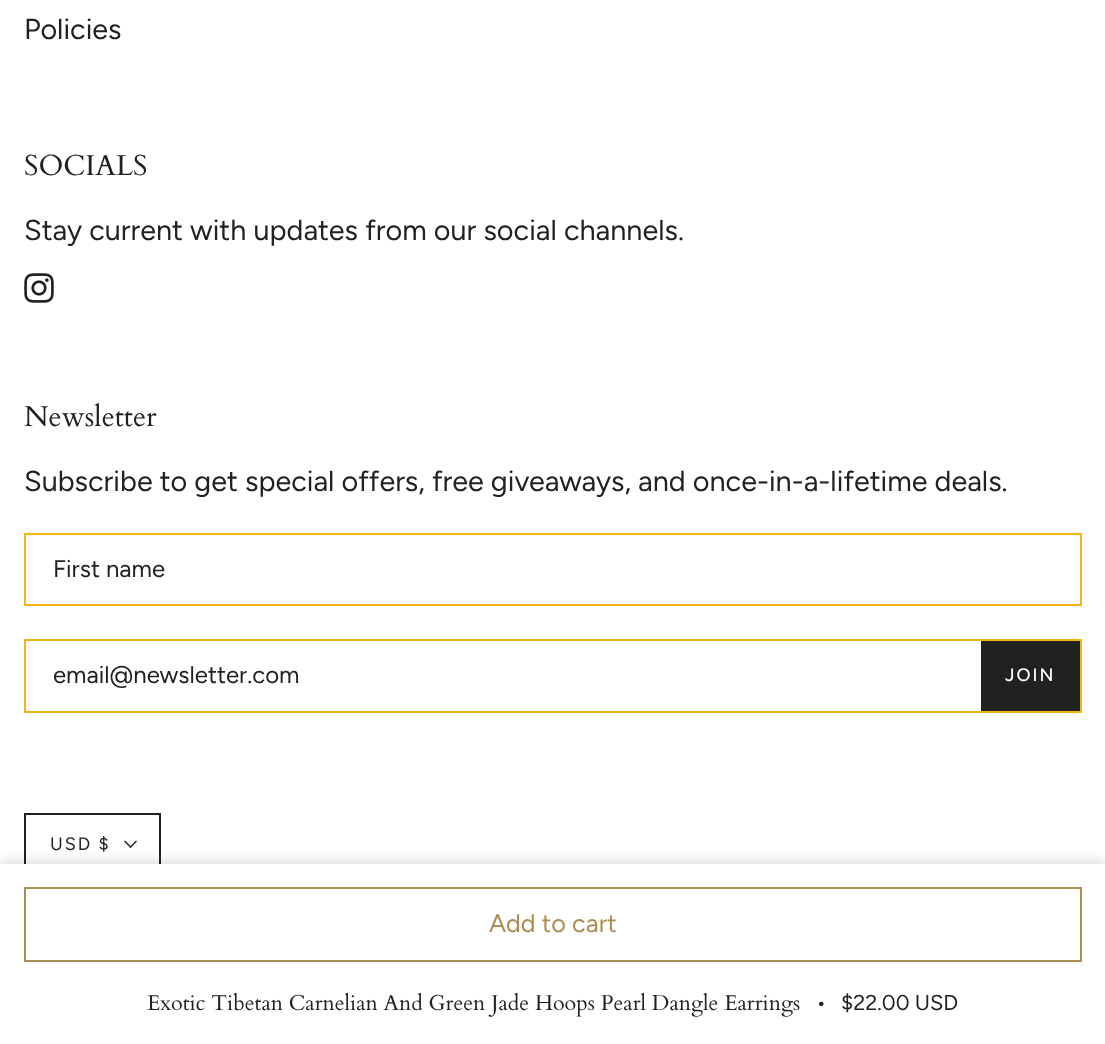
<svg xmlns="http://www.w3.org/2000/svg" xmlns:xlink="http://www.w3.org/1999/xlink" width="1105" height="1044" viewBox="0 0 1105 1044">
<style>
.cls-1{font:28.8px Figtree;fill:#212121}
.cls-2{font:28.8px Cardo;fill:#212121}
.cls-3{font:24px Figtree;fill:#212121}
.cls-4{font:500 18px Figtree;letter-spacing:2px;fill:#ffffff}
.cls-5{font:18px Figtree;letter-spacing:2px;fill:#212121}
.cls-6{font:25.25px Figtree;fill:#ab8c52}
.cls-7{font:21.6px Cardo;fill:#212121}
.cls-8{font:21.6px Figtree;fill:#212121}
</style>
<rect width="100%" height="100%" fill="#ffffff"/>
<image xlink:href="image0.png" x="24" y="273" width="30" height="30"/>
<rect fill="none" stroke="#f5b40f" stroke-width="2" x="25" y="534" width="1056" height="71"/>
<rect fill="none" stroke="#f5b40f" stroke-width="2" x="25" y="640" width="1056" height="72"/>
<rect fill="#212121" x="981" y="641" width="99" height="70"/>
<rect fill="none" stroke="#212121" stroke-width="2" x="25" y="814" width="135" height="61"/>
<path fill="#212121" d="M129.5 847L136 840.5L137 841.5L130.5 848Z"/>
<path fill="#212121" d="M124 841.5L125 840.5L131.5 847L130.5 848Z"/>
<rect fill="#000000" fill-opacity="0.2" filter="blur(7.5px)" x="0" y="864" width="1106" height="180"/>
<rect fill="#ffffff" x="0" y="864" width="1105" height="180"/>
<rect fill="none" stroke="#ab8c52" stroke-width="2" x="25" y="888" width="1056" height="73"/>
<text class="cls-1" x="24" y="39">Policies</text>
<text class="cls-2" x="24" y="175">SOCIALS</text>
<text class="cls-1" x="24" y="240">Stay current with updates from our social channels.</text>
<text class="cls-2" x="24" y="426">Newsletter</text>
<text class="cls-1" x="24" y="491">Subscribe to get special offers, free giveaways, and once-in-a-lifetime deals.</text>
<text class="cls-3" x="53" y="577">First name</text>
<text class="cls-3" x="53" y="683">email@newsletter.com</text>
<text class="cls-4" x="1005" y="681">JOIN</text>
<text class="cls-5" x="50" y="850">USD $</text>
<text class="cls-6" x="489" y="932">Add to cart</text>
<text class="cls-7" x="147" y="1010">Exotic Tibetan Carnelian And Green Jade Hoops Pearl Dangle Earrings</text>
<text class="cls-8" x="816" y="1010">•</text>
<text class="cls-8" x="841" y="1010">$22.00 USD</text>
</svg>
